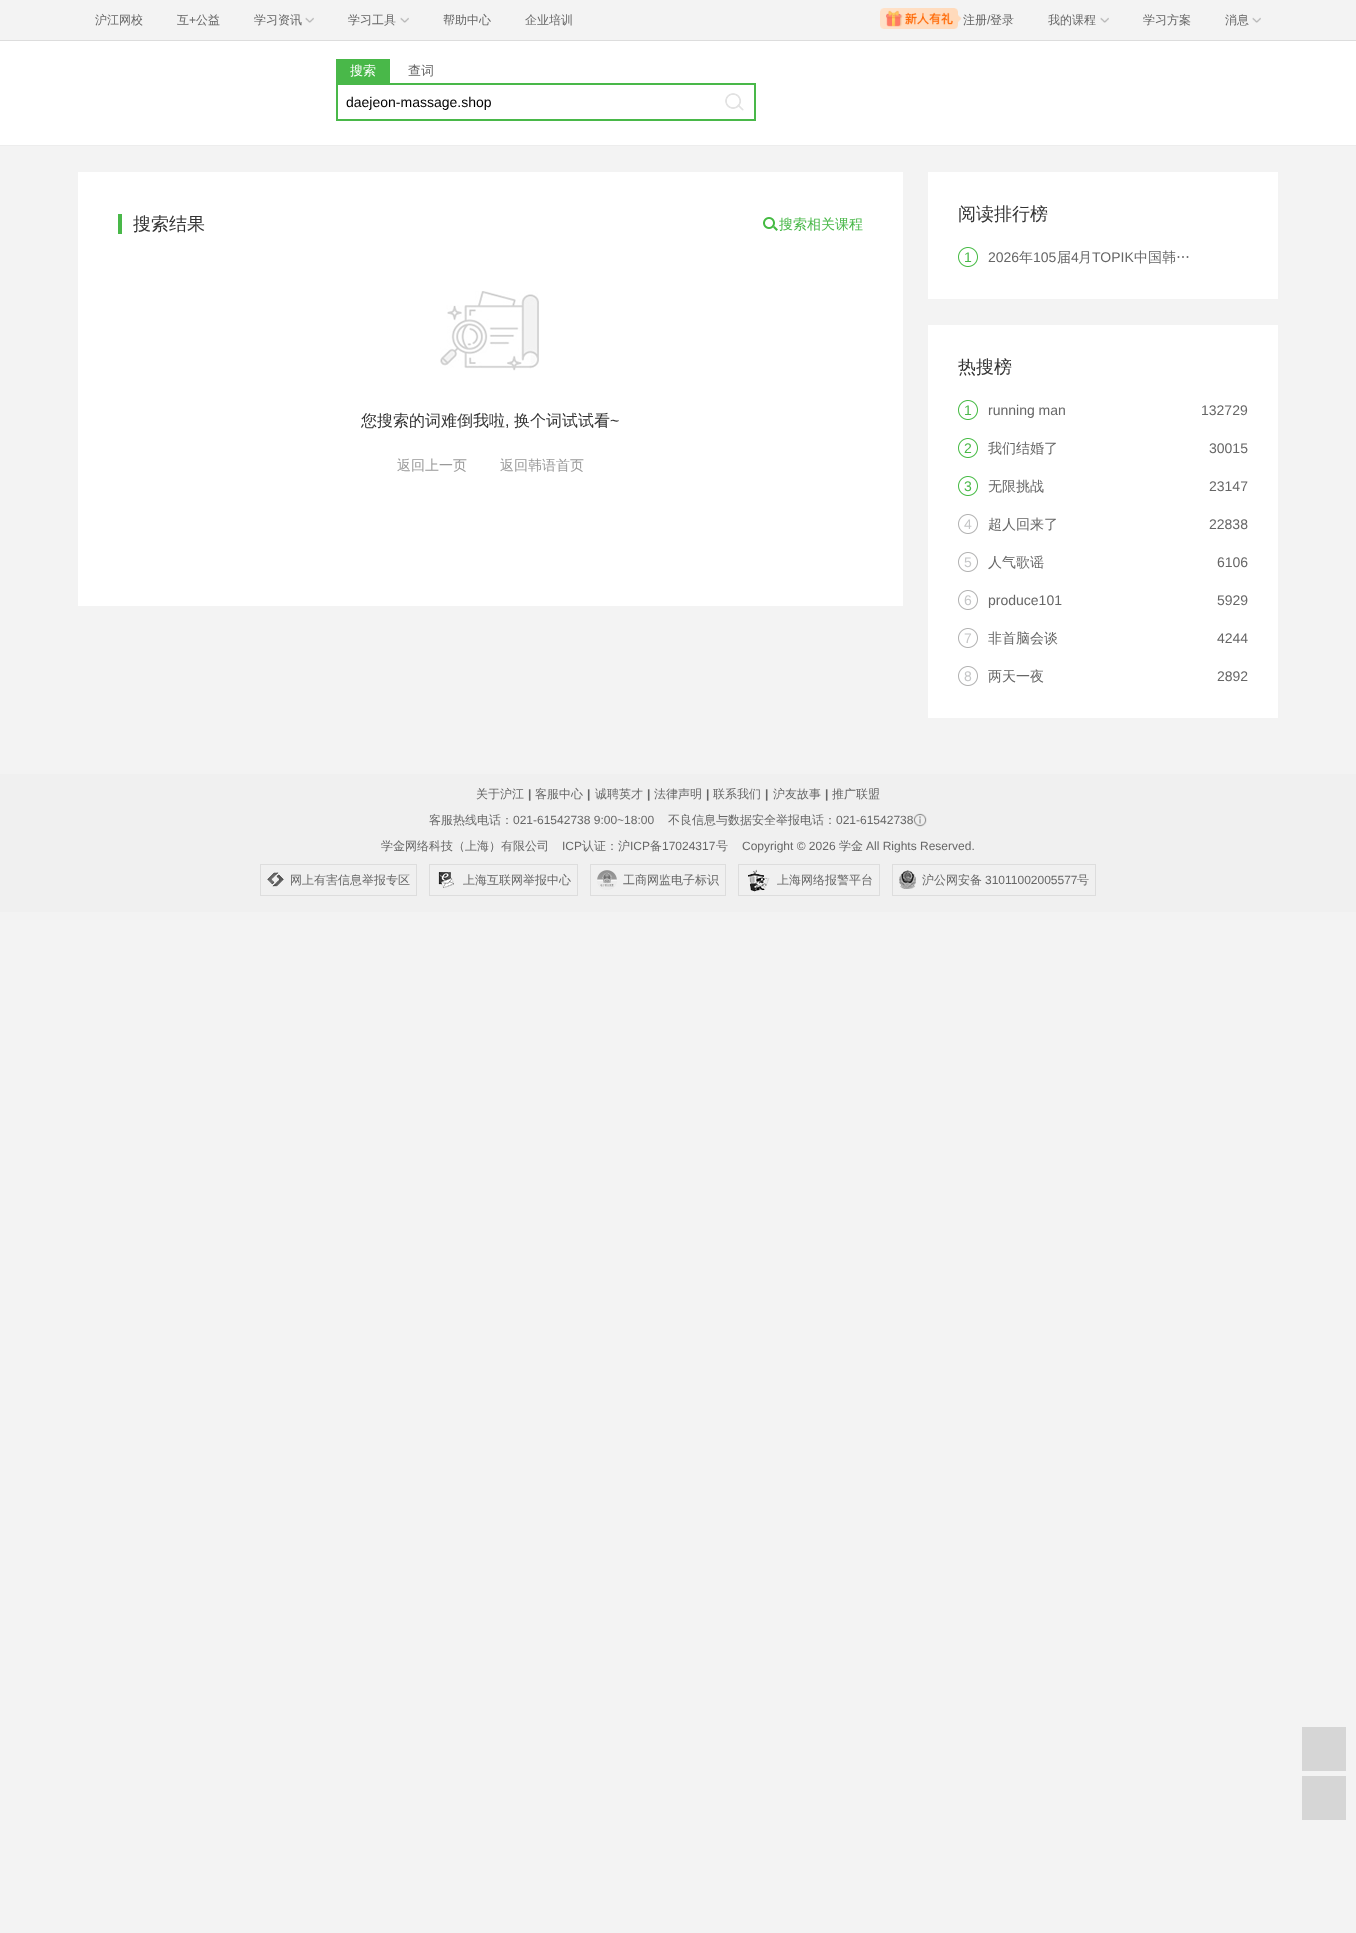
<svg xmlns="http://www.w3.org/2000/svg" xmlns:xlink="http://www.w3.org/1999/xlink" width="1356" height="1933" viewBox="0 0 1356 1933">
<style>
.cls-1{font:500 12px WenQuanYi Zen Hei;fill:#666666}
.cls-2{font:12px Liberation Sans;fill:#666666}
.cls-3{font:500 13px WenQuanYi Zen Hei;fill:#ffffff}
.cls-4{font:500 13px WenQuanYi Zen Hei;fill:#666666}
.cls-5{font:14px Liberation Sans;fill:#000000}
.cls-6{font:500 18px WenQuanYi Zen Hei;fill:#333333}
.cls-7{font:500 14px WenQuanYi Zen Hei;fill:#49b849}
.cls-8{font:500 16px WenQuanYi Zen Hei;fill:#333333}
.cls-9{font:16px Liberation Sans;fill:#333333}
.cls-10{font:500 14px WenQuanYi Zen Hei;fill:#999999}
.cls-11{font:14px Liberation Sans;fill:#49b849}
.cls-12{font:14px Liberation Sans;fill:#666666}
.cls-13{font:500 14px WenQuanYi Zen Hei;fill:#666666}
.cls-14{font:14px Liberation Sans;fill:#c5c6c7}
.cls-15{font:bold 12px Liberation Sans;fill:#666666}
</style>
<rect width="100%" height="100%" fill="#f3f3f3"/>
<rect fill="#dddddd" x="0" y="40" width="1356" height="1"/>
<image xlink:href="image0.png" x="305" y="17" width="9" height="6"/>
<image xlink:href="image0.png" x="400" y="17" width="9" height="6"/>
<image xlink:href="image1.png" x="880" y="8" width="82" height="21"/>
<image xlink:href="image0.png" x="1100" y="17" width="9" height="6"/>
<image xlink:href="image0.png" x="1252" y="17" width="9" height="6"/>
<rect fill="#ffffff" x="0" y="41" width="1356" height="104"/>
<rect fill="#ededed" x="0" y="145" width="1356" height="1"/>
<rect fill="#49b849" x="336" y="59" width="54" height="24"/>
<rect fill="none" stroke="#49b849" stroke-width="2" x="337" y="84" width="418" height="36"/>
<image xlink:href="image2.png" x="725" y="93" width="19" height="18"/>
<rect fill="#ffffff" x="78" y="172" width="825" height="434"/>
<rect fill="#49b849" x="118" y="214" width="4" height="20"/>
<image xlink:href="image3.png" x="763" y="217" width="15" height="14"/>
<image xlink:href="image4.png" x="440" y="291" width="99" height="80"/>
<rect fill="#ffffff" x="928" y="172" width="350" height="127"/>
<image xlink:href="image5.png" x="958" y="247" width="20" height="20"/>
<rect fill="#ffffff" x="928" y="325" width="350" height="393"/>
<image xlink:href="image5.png" x="958" y="400" width="20" height="20"/>
<image xlink:href="image5.png" x="958" y="438" width="20" height="20"/>
<image xlink:href="image5.png" x="958" y="476" width="20" height="20"/>
<image xlink:href="image6.png" x="958" y="514" width="20" height="20"/>
<image xlink:href="image6.png" x="958" y="552" width="20" height="20"/>
<image xlink:href="image6.png" x="958" y="590" width="20" height="20"/>
<image xlink:href="image6.png" x="958" y="628" width="20" height="20"/>
<image xlink:href="image6.png" x="958" y="666" width="20" height="20"/>
<rect fill="#f0f0f0" x="0" y="774" width="1356" height="138"/>
<image xlink:href="image7.png" x="913" y="813" width="14" height="14"/>
<rect fill="none" stroke="#dddddd" x="260.5" y="864.5" width="156" height="31"/>
<image xlink:href="image8.png" x="267" y="872" width="17" height="15"/>
<rect fill="none" stroke="#dddddd" x="429.5" y="864.5" width="148" height="31"/>
<image xlink:href="image9.png" x="438" y="872" width="16" height="16"/>
<rect fill="none" stroke="#dddddd" x="590.5" y="864.5" width="135" height="31"/>
<image xlink:href="image10.png" x="597" y="870" width="20" height="20"/>
<rect fill="none" stroke="#dddddd" x="738.5" y="864.5" width="141" height="31"/>
<image xlink:href="image11.png" x="748" y="869" width="22" height="23"/>
<rect fill="none" stroke="#dddddd" x="892.5" y="864.5" width="203" height="31"/>
<image xlink:href="image12.png" x="899" y="870" width="17" height="19"/>
<rect fill="#d6d6d6" x="1302" y="1727" width="44" height="44"/>
<rect fill="#d6d6d6" x="1302" y="1776" width="44" height="44"/>
<text class="cls-1" x="95" y="24">沪江网校</text>
<text class="cls-1" x="177" y="24">互</text>
<text class="cls-2" x="189" y="24">+</text>
<text class="cls-1" x="196" y="24">公益</text>
<text class="cls-1" x="254" y="24">学习资讯</text>
<text class="cls-1" x="348" y="24">学习工具</text>
<text class="cls-1" x="443" y="24">帮助中心</text>
<text class="cls-1" x="525" y="24">企业培训</text>
<text class="cls-1" x="963" y="24">注册</text>
<text class="cls-2" x="987" y="24">/</text>
<text class="cls-1" x="990" y="24">登录</text>
<text class="cls-1" x="1048" y="24">我的课程</text>
<text class="cls-1" x="1143" y="24">学习方案</text>
<text class="cls-1" x="1225" y="24">消息</text>
<text class="cls-3" x="350" y="75">搜索</text>
<text class="cls-4" x="408" y="75">查词</text>
<text class="cls-5" x="346" y="107">daejeon-massage.shop</text>
<text class="cls-6" x="133" y="230">搜索结果</text>
<text class="cls-7" x="779" y="229">搜索相关课程</text>
<text class="cls-8" x="361" y="426">您搜索的词难倒我啦</text>
<text class="cls-8" x="514" y="426">换个词试试看</text>
<text class="cls-9" x="610" y="426">~</text>
<text class="cls-9" x="505" y="426">,</text>
<text class="cls-10" x="397" y="470">返回上一页</text>
<text class="cls-10" x="500" y="470">返回韩语首页</text>
<text class="cls-6" x="958" y="220">阅读排行榜</text>
<text class="cls-11" x="964" y="262">1</text>
<text class="cls-12" x="988" y="262">2026</text>
<text class="cls-13" x="1019" y="262">年</text>
<text class="cls-12" x="1033" y="262">105</text>
<text class="cls-13" x="1057" y="262">届</text>
<text class="cls-12" x="1071" y="262">4</text>
<text class="cls-13" x="1078" y="262">月</text>
<text class="cls-12" x="1092" y="262">TOPIK</text>
<text class="cls-13" x="1134" y="262">中国韩…</text>
<text class="cls-6" x="958" y="373">热搜榜</text>
<text class="cls-11" x="964" y="415">1</text>
<text class="cls-12" x="988" y="415">running man</text>
<text class="cls-12" x="1201" y="415">132729</text>
<text class="cls-11" x="964" y="453">2</text>
<text class="cls-13" x="988" y="453">我们结婚了</text>
<text class="cls-12" x="1209" y="453">30015</text>
<text class="cls-11" x="964" y="491">3</text>
<text class="cls-13" x="988" y="491">无限挑战</text>
<text class="cls-12" x="1209" y="491">23147</text>
<text class="cls-14" x="964" y="529">4</text>
<text class="cls-13" x="988" y="529">超人回来了</text>
<text class="cls-12" x="1209" y="529">22838</text>
<text class="cls-14" x="964" y="567">5</text>
<text class="cls-13" x="988" y="567">人气歌谣</text>
<text class="cls-12" x="1217" y="567">6106</text>
<text class="cls-14" x="964" y="605">6</text>
<text class="cls-12" x="988" y="605">produce101</text>
<text class="cls-12" x="1217" y="605">5929</text>
<text class="cls-14" x="964" y="643">7</text>
<text class="cls-13" x="988" y="643">非首脑会谈</text>
<text class="cls-12" x="1217" y="643">4244</text>
<text class="cls-14" x="964" y="681">8</text>
<text class="cls-13" x="988" y="681">两天一夜</text>
<text class="cls-12" x="1217" y="681">2892</text>
<text class="cls-1" x="476" y="798">关于沪江</text>
<text class="cls-15" x="528" y="798">|</text>
<text class="cls-1" x="535" y="798">客服中心</text>
<text class="cls-15" x="587" y="798">|</text>
<text class="cls-1" x="595" y="798">诚聘英才</text>
<text class="cls-15" x="647" y="798">|</text>
<text class="cls-1" x="654" y="798">法律声明</text>
<text class="cls-15" x="706" y="798">|</text>
<text class="cls-1" x="713" y="798">联系我们</text>
<text class="cls-15" x="765" y="798">|</text>
<text class="cls-1" x="773" y="798">沪友故事</text>
<text class="cls-15" x="825" y="798">|</text>
<text class="cls-1" x="832" y="798">推广联盟</text>
<text class="cls-1" x="429" y="824">客服热线电话：</text>
<text class="cls-2" x="513" y="824">021-61542738 9:00~18:00</text>
<text class="cls-1" x="668" y="824">不良信息与数据安全举报电话：</text>
<text class="cls-2" x="836" y="824">021-61542738</text>
<text class="cls-1" x="381" y="850">学金网络科技（上海）有限公司</text>
<text class="cls-2" x="562" y="850">ICP</text>
<text class="cls-1" x="582" y="850">认证：沪</text>
<text class="cls-2" x="630" y="850">ICP</text>
<text class="cls-1" x="650" y="850">备</text>
<text class="cls-2" x="662" y="850">17024317</text>
<text class="cls-1" x="716" y="850">号</text>
<text class="cls-2" x="742" y="850">Copyright © 2026</text>
<text class="cls-1" x="839" y="850">学金</text>
<text class="cls-2" x="866" y="850">All Rights Reserved.</text>
<text class="cls-1" x="290" y="884">网上有害信息举报专区</text>
<text class="cls-1" x="463" y="884">上海互联网举报中心</text>
<text class="cls-1" x="623" y="884">工商网监电子标识</text>
<text class="cls-1" x="777" y="884">上海网络报警平台</text>
<text class="cls-1" x="922" y="884">沪公网安备</text>
<text class="cls-2" x="985" y="884">31011002005577</text>
<text class="cls-1" x="1077" y="884">号</text>
</svg>
